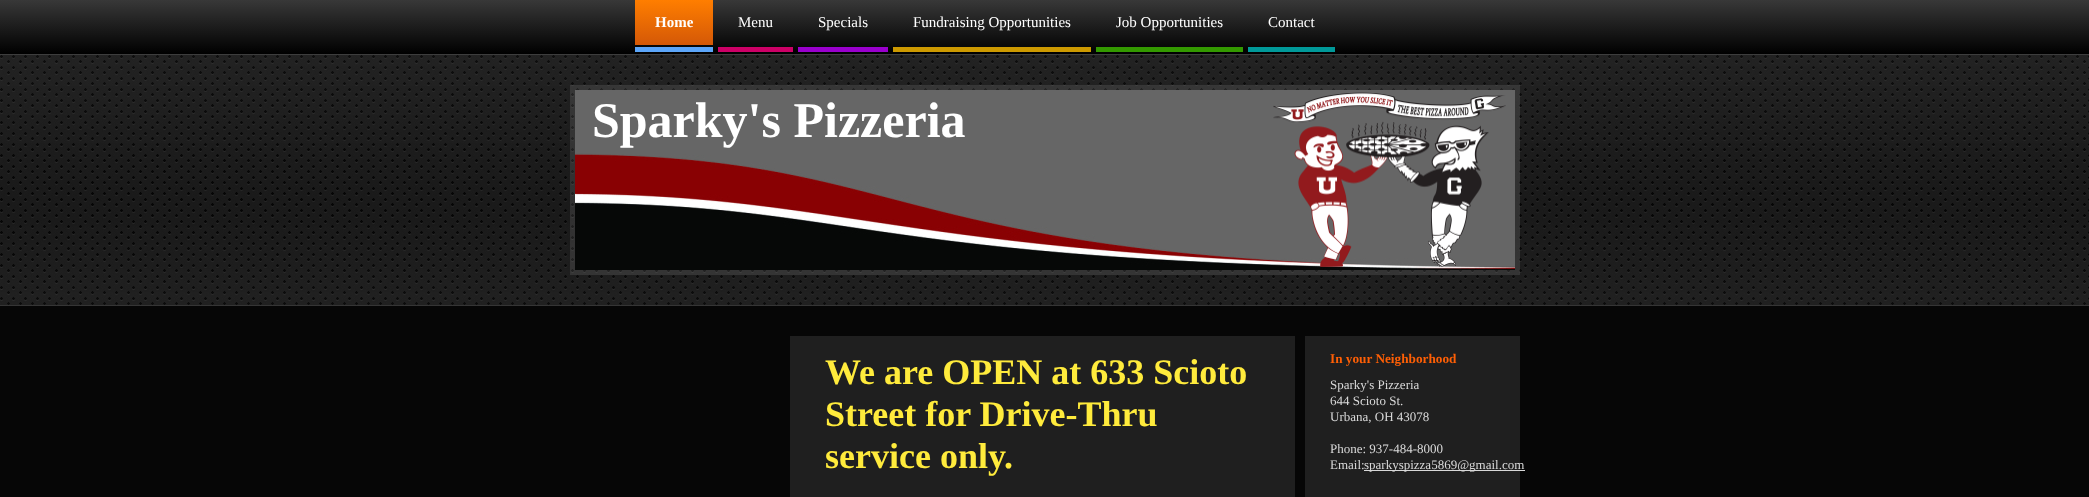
<svg xmlns="http://www.w3.org/2000/svg" xmlns:xlink="http://www.w3.org/1999/xlink" width="2089" height="497" viewBox="0 0 2089 497">
<style>
.cls-1{font:bold 15px Liberation Serif;fill:#ffffff}
.cls-2{font:15px Liberation Serif;fill:#ffffff}
.cls-3{font:bold 50px Liberation Serif;fill:#ffffff}
.cls-4{font:bold 36px Liberation Serif;fill:#ffeb3c}
.cls-5{font:bold 13.25px Liberation Serif;fill:#ff5f05}
.cls-6{font:13px Liberation Serif;fill:#d9d9d9}
</style>
<defs>
<linearGradient id="g1" gradientUnits="userSpaceOnUse" x1="1045" y1="0" x2="1045" y2="54"><stop offset="0" stop-color="#383838"/><stop offset="1" stop-color="#000000"/></linearGradient>
<linearGradient id="g2" gradientUnits="userSpaceOnUse" x1="674" y1="0" x2="674" y2="45"><stop offset="0" stop-color="#ff7e00"/><stop offset="1" stop-color="#d45807"/></linearGradient>
</defs>
<rect width="100%" height="100%" fill="#060606"/>
<rect fill="url(#g1)" x="0" y="0" width="2089" height="54"/>
<rect fill="#3d3d3d" x="0" y="54" width="2089" height="1"/>
<rect fill="#5ca6fa" x="635" y="47" width="78" height="5"/>
<rect fill="url(#g2)" x="635" y="0" width="78" height="45"/>
<rect fill="#cc0066" x="718" y="47" width="75" height="5"/>
<rect fill="#9900cc" x="798" y="47" width="90" height="5"/>
<rect fill="#cc9900" x="893" y="47" width="198" height="5"/>
<rect fill="#339900" x="1096" y="47" width="147" height="5"/>
<rect fill="#009999" x="1248" y="47" width="87" height="5"/>
<image xlink:href="image0.png" x="0" y="55" width="2089" height="250"/>
<rect fill="#353535" x="0" y="305" width="2089" height="1"/>
<rect fill="none" stroke="#ffffff" stroke-opacity="0.1" stroke-width="5" x="572.5" y="87.5" width="945" height="185"/>
<image xlink:href="image1.png" x="575" y="90" width="940" height="180"/>
<image xlink:href="image2.png" x="1273" y="92" width="233" height="175"/>
<rect fill="#1f1f1f" x="790" y="336" width="505" height="161"/>
<rect fill="#1f1f1f" x="1305" y="336" width="215" height="161"/>
<rect fill="#d8d8d8" x="1364" y="470" width="161" height="1"/>
<text class="cls-1" x="655" y="27">Home</text>
<text class="cls-2" x="738" y="27">Menu</text>
<text class="cls-2" x="818" y="27">Specials</text>
<text class="cls-2" x="913" y="27">Fundraising Opportunities</text>
<text class="cls-2" x="1116" y="27">Job Opportunities</text>
<text class="cls-2" x="1268" y="27">Contact</text>
<text class="cls-3" x="592" y="137">Sparky's Pizzeria</text>
<text class="cls-4"><tspan x="825" y="384">We are OPEN at 633 Scioto</tspan><tspan x="825" y="426">Street for Drive-Thru</tspan><tspan x="825" y="468">service only.</tspan></text>
<text class="cls-5" x="1330" y="363">In your Neighborhood</text>
<text class="cls-6"><tspan x="1330" y="389">Sparky's Pizzeria</tspan><tspan x="1330" y="405">644 Scioto St.</tspan><tspan x="1330" y="421">Urbana, OH 43078</tspan></text>
<text class="cls-6"><tspan x="1330" y="453">Phone: 937-484-8000</tspan><tspan x="1330" y="469">Email:</tspan></text>
<text class="cls-6" x="1364" y="469">sparkyspizza5869@gmail.com</text>
</svg>
